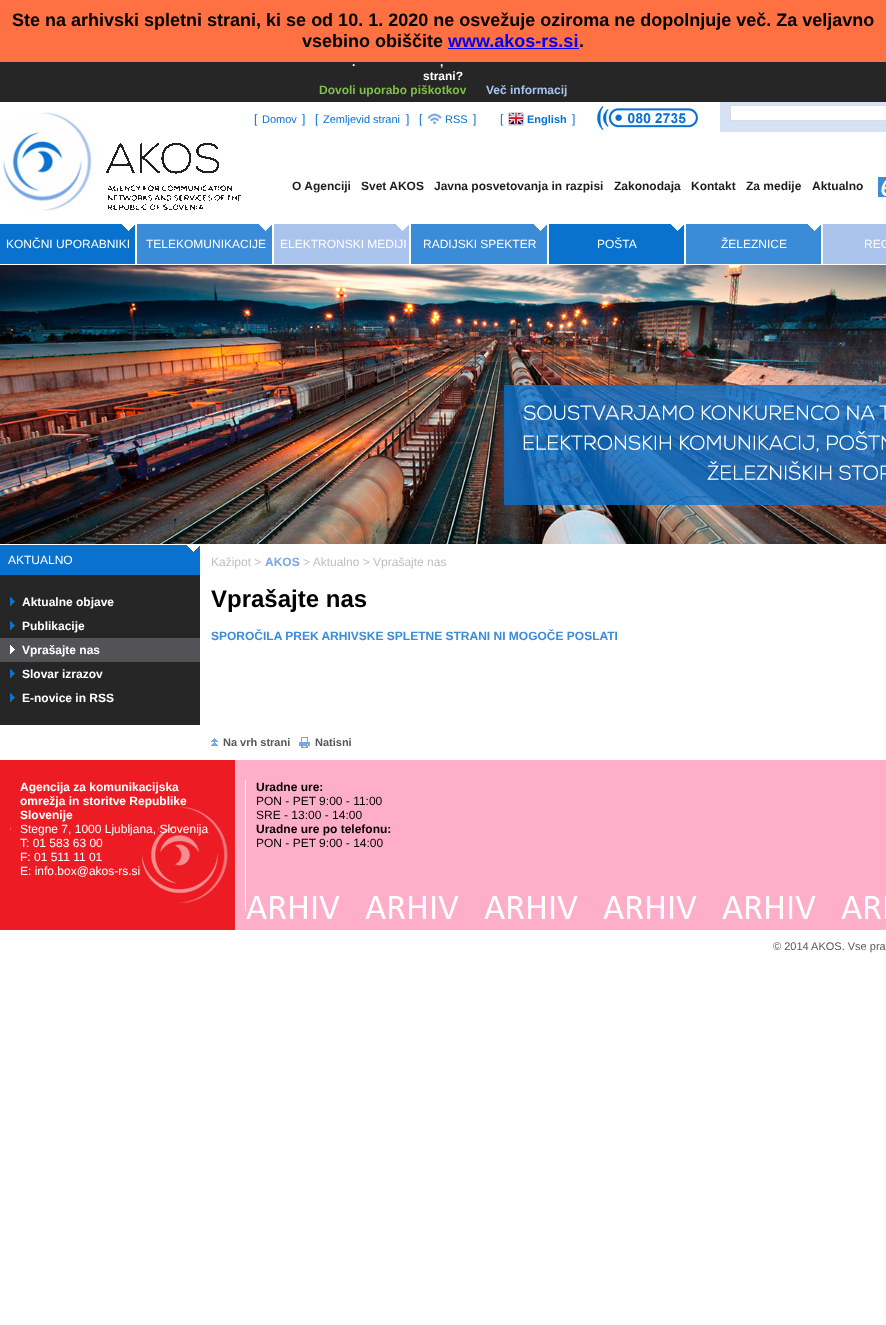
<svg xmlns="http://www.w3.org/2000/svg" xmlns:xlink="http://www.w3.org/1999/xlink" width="886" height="1325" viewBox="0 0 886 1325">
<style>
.cls-1{font:bold 18px Liberation Sans;fill:#000000}
.cls-2{font:bold 18px Liberation Sans;fill:#0000ee}
.cls-3{font:bold 12px Liberation Sans;fill:#ffffff}
.cls-4{font:bold 12px Liberation Sans;fill:#81be45}
.cls-5{font:bold 12px Liberation Sans;fill:#a9c3ec}
.cls-6{font:12px Liberation Sans;fill:#0971ce}
.cls-7{font:11px Liberation Sans;fill:#0971ce}
.cls-8{font:bold 11px Liberation Sans;fill:#0971ce}
.cls-9{font:bold 12px Liberation Sans;fill:#211c21}
.cls-10{font:12px Liberation Sans;fill:#ffffff}
.cls-11{font:12px Liberation Sans;fill:#c0c0c0}
.cls-12{font:bold 12px Liberation Sans;fill:#79a7e2}
.cls-13{font:bold 24px Liberation Sans;fill:#000000}
.cls-14{font:bold 12px Liberation Sans;fill:#3a8bd8}
.cls-15{font:bold 11px Liberation Sans;fill:#57585a}
.cls-16{font:bold 12px Liberation Sans;fill:#000000}
.cls-17{font:12px Liberation Sans;fill:#000000}
.cls-18{font:11px Liberation Sans;fill:#57585a}
</style>
<rect width="100%" height="100%" fill="#ffffff"/>
<rect fill="#ff7043" x="0" y="0" width="886" height="62"/>
<rect fill="#0000ee" x="448" y="48" width="131" height="1"/>
<rect fill="#262626" x="0" y="62" width="886" height="40"/>
<image xlink:href="image0.png" x="3" y="112" width="238" height="99"/>
<image xlink:href="image1.png" x="427" y="113" width="15" height="12"/>
<image xlink:href="image2.png" x="508" y="112" width="16" height="14"/>
<image xlink:href="image3.png" x="597" y="106" width="101" height="24"/>
<rect fill="#d6e2f4" x="720" y="102" width="166" height="30"/>
<rect fill="#ffffff" stroke="#d6dbe7" x="730.5" y="105.5" width="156" height="15"/>
<image xlink:href="image4.png" x="878" y="177" width="8" height="20"/>
<image xlink:href="image5.png" x="0" y="265" width="886" height="279"/>
<image xlink:href="image6.png" x="0" y="224" width="135" height="40"/>
<image xlink:href="image7.png" x="137" y="224" width="135" height="40"/>
<image xlink:href="image8.png" x="274" y="224" width="135" height="40"/>
<image xlink:href="image9.png" x="411" y="224" width="136" height="40"/>
<image xlink:href="image6.png" x="549" y="224" width="135" height="40"/>
<image xlink:href="image7.png" x="686" y="224" width="135" height="40"/>
<rect fill="#a9c3ec" x="823" y="224" width="63" height="40"/>
<image xlink:href="image10.png" x="0" y="545" width="200" height="30"/>
<rect fill="#262626" x="0" y="575" width="200" height="150"/>
<image xlink:href="image11.png" x="10" y="597" width="5" height="9"/>
<image xlink:href="image11.png" x="10" y="621" width="5" height="9"/>
<rect fill="#535357" x="0" y="638" width="200" height="24"/>
<image xlink:href="image12.png" x="10" y="645" width="5" height="9"/>
<image xlink:href="image11.png" x="10" y="669" width="5" height="9"/>
<image xlink:href="image11.png" x="10" y="693" width="5" height="9"/>
<image xlink:href="image13.png" x="211" y="738" width="7" height="8"/>
<image xlink:href="image14.png" x="299" y="737" width="11" height="11"/>
<image xlink:href="image15.png" x="0" y="760" width="235" height="170"/>
<image xlink:href="image16.png" x="142" y="807" width="86" height="96"/>
<image xlink:href="image17.png" x="235" y="760" width="651" height="170"/>
<rect fill="#ffffff" x="245" y="780" width="1" height="131"/>
<text class="cls-1" x="12" y="26">Ste na arhivski spletni strani, ki se od 10. 1. 2020 ne osvežuje oziroma ne dopolnjuje več. Za veljavno</text>
<text class="cls-1" x="302" y="47">vsebino obiščite</text>
<text class="cls-2" x="448" y="47">www.akos-rs.si</text>
<text class="cls-1" x="579" y="47">.</text>
<text class="cls-3" x="352" y="66">.</text>
<text class="cls-3" x="440" y="66">,</text>
<text class="cls-3" x="423" y="80">strani?</text>
<text class="cls-4" x="319" y="94">Dovoli uporabo piškotkov</text>
<text class="cls-5" x="486" y="94">Več informacij</text>
<text class="cls-6" x="254" y="123">[</text>
<text class="cls-7" x="262" y="123">Domov</text>
<text class="cls-6" x="302" y="123">]</text>
<text class="cls-6" x="315" y="123">[</text>
<text class="cls-7" x="323" y="123">Zemljevid strani</text>
<text class="cls-6" x="406" y="123">]</text>
<text class="cls-6" x="419" y="123">[</text>
<text class="cls-7" x="445" y="123">RSS</text>
<text class="cls-6" x="473" y="123">]</text>
<text class="cls-6" x="500" y="123">[</text>
<text class="cls-8" x="527" y="123">English</text>
<text class="cls-6" x="572" y="123">]</text>
<text class="cls-9" x="292" y="190">O Agenciji</text>
<text class="cls-9" x="361" y="190">Svet AKOS</text>
<text class="cls-9" x="434" y="190">Javna posvetovanja in razpisi</text>
<text class="cls-9" x="614" y="190">Zakonodaja</text>
<text class="cls-9" x="691" y="190">Kontakt</text>
<text class="cls-9" x="746" y="190">Za medije</text>
<text class="cls-9" x="812" y="190">Aktualno</text>
<text class="cls-10" x="6" y="248">KONČNI UPORABNIKI</text>
<text class="cls-10" x="146" y="248">TELEKOMUNIKACIJE</text>
<text class="cls-10" x="280" y="248">ELEKTRONSKI MEDIJI</text>
<text class="cls-10" x="423" y="248">RADIJSKI SPEKTER</text>
<text class="cls-10" x="597" y="248">POŠTA</text>
<text class="cls-10" x="721" y="248">ŽELEZNICE</text>
<text class="cls-10" x="864" y="248">REG</text>
<text class="cls-10" x="8" y="564">AKTUALNO</text>
<text class="cls-3" x="22" y="606">Aktualne objave</text>
<text class="cls-3" x="22" y="630">Publikacije</text>
<text class="cls-3" x="22" y="654">Vprašajte nas</text>
<text class="cls-3" x="22" y="678">Slovar izrazov</text>
<text class="cls-3" x="22" y="702">E-novice in RSS</text>
<text class="cls-11" x="211" y="566">Kažipot &gt;</text>
<text class="cls-12" x="265" y="566">AKOS</text>
<text class="cls-11" x="303" y="566">&gt; Aktualno &gt; Vprašajte nas</text>
<text class="cls-13" x="211" y="607">Vprašajte nas</text>
<text class="cls-14" x="211" y="640">SPOROČILA PREK ARHIVSKE SPLETNE STRANI NI MOGOČE POSLATI</text>
<text class="cls-15" x="223" y="746">Na vrh strani</text>
<text class="cls-15" x="315" y="746">Natisni</text>
<text class="cls-3"><tspan x="20" y="791">Agencija za komunikacijska</tspan><tspan x="20" y="805">omrežja in storitve Republike</tspan><tspan x="20" y="819">Slovenije</tspan></text>
<text class="cls-10"><tspan x="20" y="833">Stegne 7, 1000 Ljubljana, Slovenija</tspan><tspan x="20" y="847">T: 01 583 63 00</tspan><tspan x="20" y="861">F: 01 511 11 01</tspan><tspan x="20" y="875">E: info.box@akos-rs.si</tspan></text>
<text class="cls-16" x="256" y="791">Uradne ure:</text>
<text class="cls-17"><tspan x="256" y="805">PON - PET 9:00 - 11:00</tspan><tspan x="256" y="819">SRE - 13:00 - 14:00</tspan></text>
<text class="cls-16" x="256" y="833">Uradne ure po telefonu:</text>
<text class="cls-17" x="256" y="847">PON - PET 9:00 - 14:00</text>
<text class="cls-18" x="773" y="950">© 2014 AKOS. Vse pra</text>
</svg>
